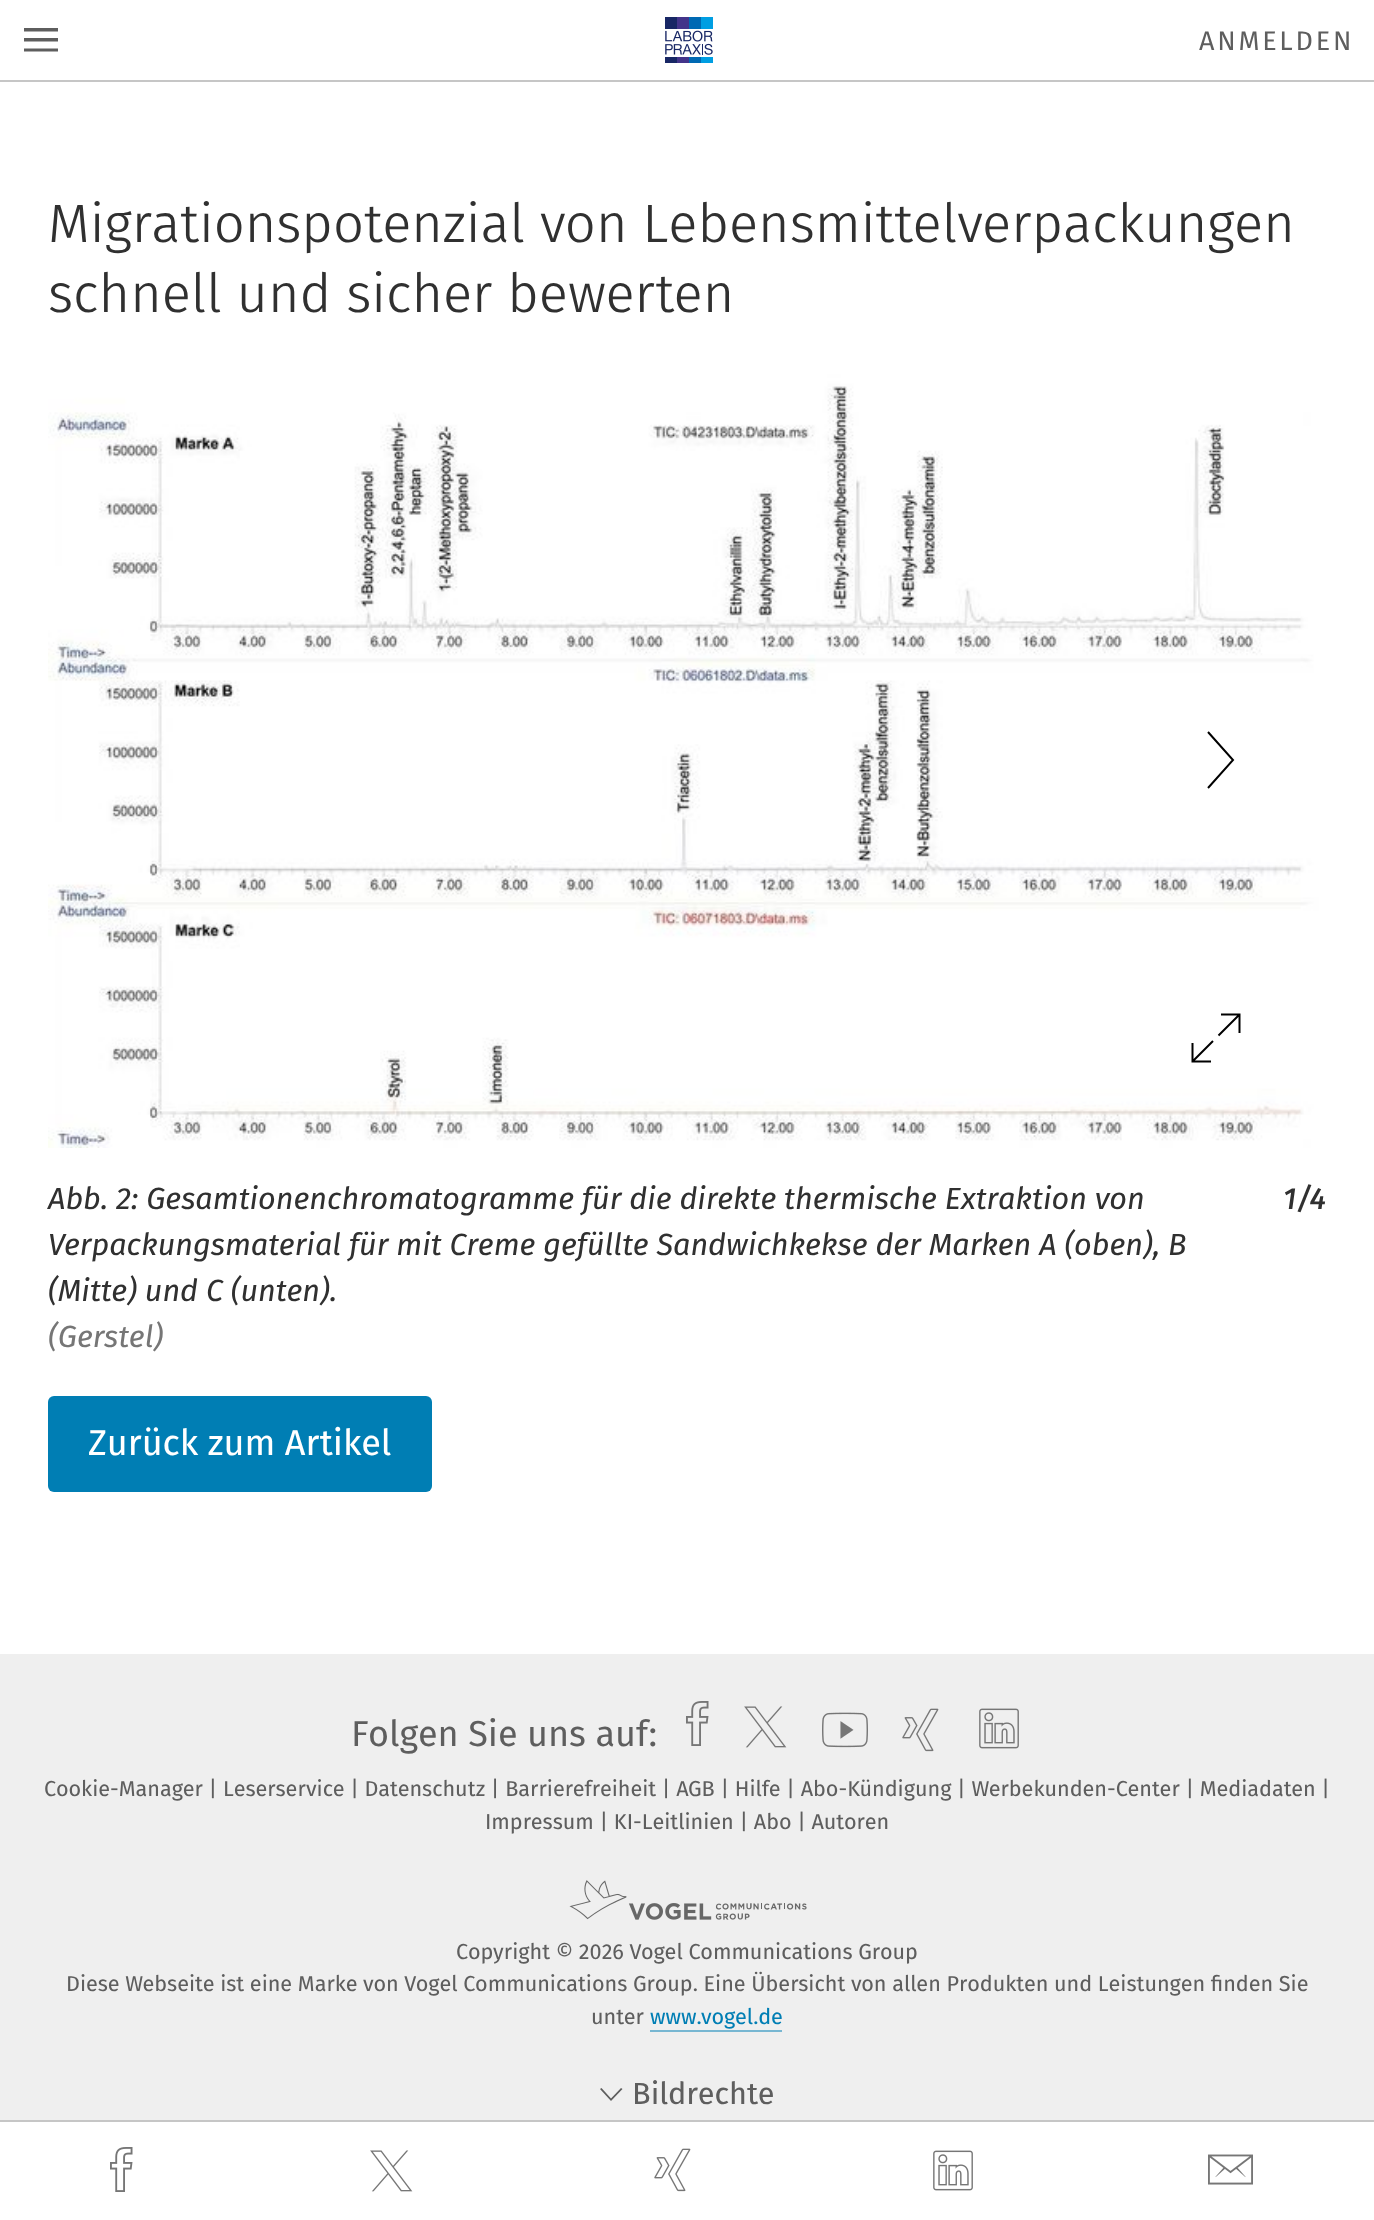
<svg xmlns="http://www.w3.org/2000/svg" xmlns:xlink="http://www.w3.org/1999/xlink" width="1374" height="2220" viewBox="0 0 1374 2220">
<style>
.cls-1{font:27px 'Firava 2';letter-spacing:2.75px;fill:#5e5e5e}
.cls-2{font:300 54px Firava;fill:#303030}
.cls-3{font:italic 30.6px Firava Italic;fill:#303030}
.cls-4{font:italic 30.6px Firava Italic;fill:#767676}
.cls-5{font:italic 500 30.6px Firava Italic;fill:#303030}
.cls-6{font:36px Firava;fill:#ffffff}
.cls-7{font:36px 'Firava 2';fill:#5e5e5e}
.cls-8{font:21.6px Firava;fill:#5e5e5e}
.cls-9{font:21.6px Firava;fill:#007eb4}
.cls-10{font:30.6px Firava;fill:#5e5e5e}
</style>
<rect width="100%" height="100%" fill="#ffffff"/>
<rect fill="#c6c6c6" x="0" y="80" width="1374" height="2"/>
<path fill="#5e5e5e" d="M24 41.5V38H58V41.5ZM24 31.5V28H58V31.5ZM24 51.5V48.5H58V51.5Z"/>
<image xlink:href="image0.png" x="665" y="17" width="48" height="46"/>
<image xlink:href="image1.png" x="48" y="374" width="1278" height="774"/>
<path fill="none" stroke="#000000" stroke-width="2" d="M1208 788L1233 760L1208 732"/>
<path fill="none" stroke="#000000" stroke-width="2" d="M1239.5 1033V1014.5H1221M1192.5 1043V1061.5H1211M1238.5 1015.5L1218.5 1035.5M1213 1041L1193 1061"/>
<rect fill="#007eb4" x="48" y="1396" width="384" height="96" rx="6"/>
<rect fill="#c6c6c6" x="0" y="2120" width="1374" height="2"/>
<image xlink:href="image2.png" x="110" y="2147" width="23" height="45"/>
<image xlink:href="image3.png" x="370" y="2150" width="43" height="42"/>
<image xlink:href="image4.png" x="654" y="2148" width="37" height="44"/>
<image xlink:href="image5.png" x="933" y="2150" width="40" height="41"/>
<image xlink:href="image6.png" x="1208" y="2154" width="45" height="31"/>
<rect fill="#efefef" x="0" y="1654" width="1374" height="466"/>
<image xlink:href="image7.png" x="686" y="1701" width="23" height="45"/>
<image xlink:href="image8.png" x="744" y="1706" width="43" height="42"/>
<image xlink:href="image9.png" x="822" y="1712" width="46" height="36"/>
<image xlink:href="image10.png" x="902" y="1708" width="37" height="44"/>
<image xlink:href="image11.png" x="979" y="1708" width="40" height="41"/>
<image xlink:href="image12.png" x="569" y="1880" width="238" height="40"/>
<rect fill="#78b7d2" x="650" y="2030" width="132" height="2"/>
<path fill="#5e5e5e" d="M621 2088L622.5 2089L611 2101L600 2089L601.5 2088L611 2098.5Z"/>
<text class="cls-1" x="1199" y="50">ANMELDEN</text>
<text class="cls-2"><tspan x="48" y="242">Migrationspotenzial von Lebensmittelverpackungen</tspan><tspan x="48" y="312">schnell und sicher bewerten</tspan></text>
<text class="cls-3"><tspan x="48" y="1209">Abb. 2: Gesamtionenchromatogramme für die direkte thermische Extraktion von</tspan><tspan x="48" y="1255">Verpackungsmaterial für mit Creme gefüllte Sandwichkekse der Marken A (oben), B</tspan><tspan x="48" y="1301">(Mitte) und C (unten).</tspan></text>
<text class="cls-4" x="48" y="1347">(Gerstel)</text>
<text class="cls-5" x="1283" y="1209">1/4</text>
<text class="cls-6" x="88" y="1455">Zurück zum Artikel</text>
<text class="cls-7" x="351" y="1746">Folgen Sie uns auf:</text>
<text class="cls-8" x="44" y="1796">Cookie-Manager | Leserservice | Datenschutz | Barrierefreiheit | AGB | Hilfe | Abo-Kündigung | Werbekunden-Center | Mediadaten |</text>
<text class="cls-8" x="485" y="1829">Impressum | KI-Leitlinien | Abo | Autoren</text>
<text class="cls-8" x="456" y="1959">Copyright © 2026 Vogel Communications Group</text>
<text class="cls-8" x="66" y="1991">Diese Webseite ist eine Marke von Vogel Communications Group. Eine Übersicht von allen Produkten und Leistungen finden Sie</text>
<text class="cls-8" x="591" y="2024">unter</text>
<text class="cls-9" x="650" y="2024">www.vogel.de</text>
<text class="cls-10" x="632" y="2104">Bildrechte</text>
</svg>
